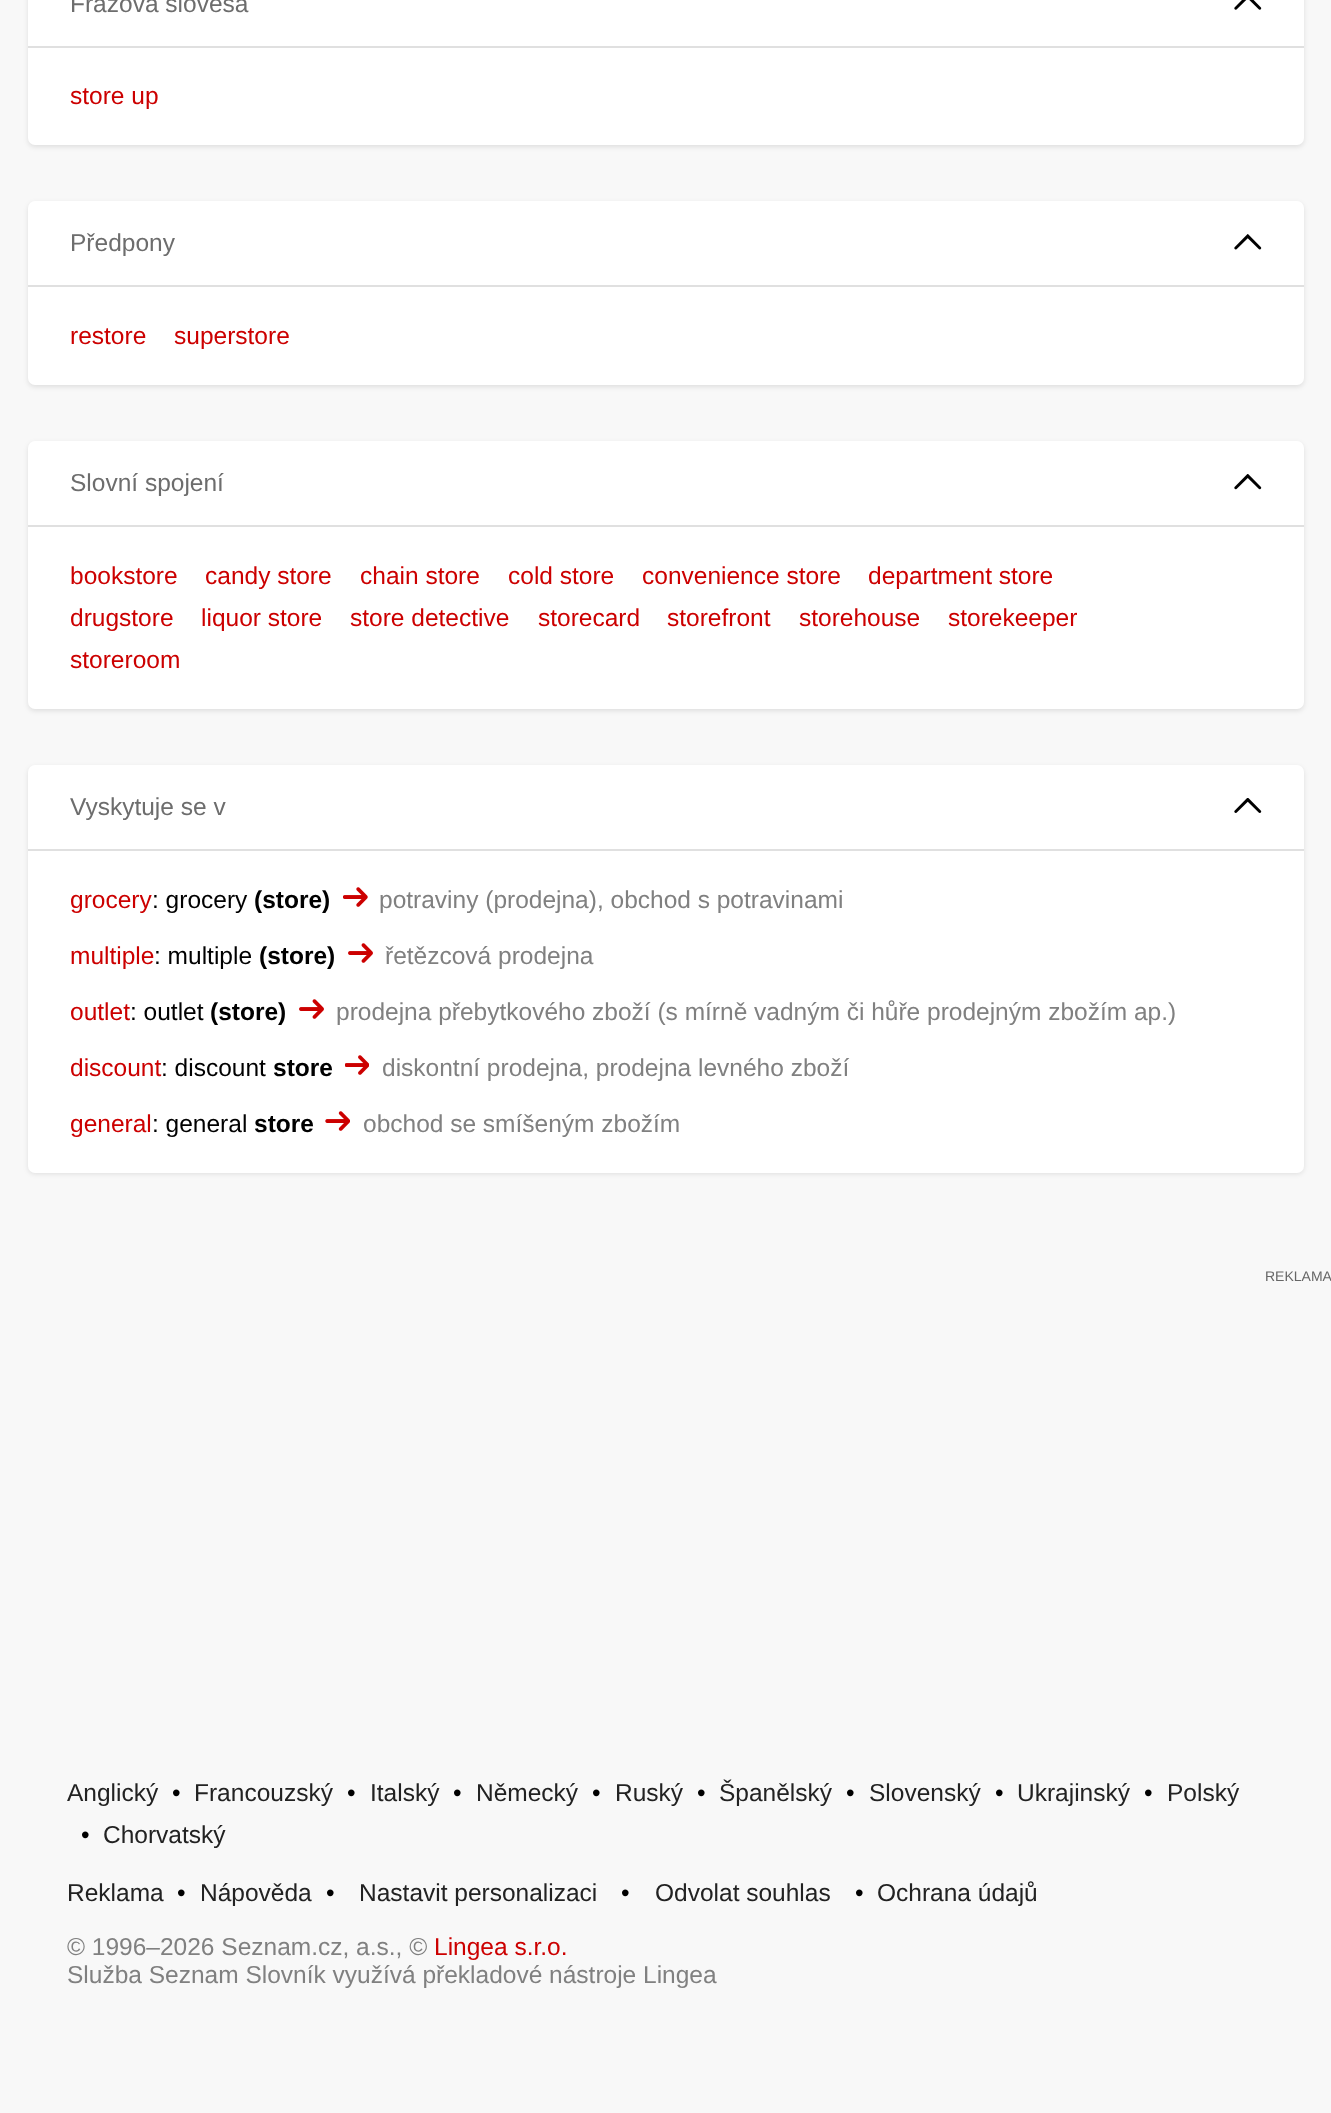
async function draw(canvas) {
  canvas.width = 1331
  canvas.height = 2113
  const ctx = canvas.getContext('2d')
  ctx.miterLimit = 4
  ctx.fontKerning = 'normal'
  async function loadImage(src) {
    const img = new Image()
    img.src = src
    await img.decode()
    return img
  }

  ctx.fillStyle = '#f8f8f8'
  ctx.fillRect(0, 0, 1331, 2113)
  ctx.fillStyle = '#0000001a'
  ctx.filter = 'blur(2.5px)'
  ctx.beginPath()
  ctx.roundRect(28, -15, 1276, 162, 7)
  ctx.fill()
  ctx.filter = 'none'
  ctx.fillStyle = '#fff'
  ctx.beginPath()
  ctx.roundRect(28, -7, 1276, 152, 7)
  ctx.fill()
  ctx.fillStyle = '#e0e0e0'
  ctx.fillRect(28, 46, 1276, 2)
  ctx.font = '24.5px Liberation Sans'
  ctx.fillStyle = '#6d6d6d'
  ctx.fillText('Frázová slovesa', 70, 12)
  ctx.drawImage(await loadImage('image0.png'), 1234, 0, 28, 10)
  ctx.fillStyle = '#c00'
  ctx.fillText('store up', 70, 104)
  ctx.fillStyle = '#0000001a'
  ctx.filter = 'blur(2.5px)'
  ctx.beginPath()
  ctx.roundRect(28, 203, 1276, 184, 7)
  ctx.fill()
  ctx.filter = 'none'
  ctx.fillStyle = '#fff'
  ctx.beginPath()
  ctx.roundRect(28, 201, 1276, 184, 7)
  ctx.fill()
  ctx.fillStyle = '#e0e0e0'
  ctx.fillRect(28, 285, 1276, 2)
  ctx.fillStyle = '#6d6d6d'
  ctx.fillText('Předpony', 70, 251)
  ctx.drawImage(await loadImage('image1.png'), 1234, 234, 28, 16)
  ctx.fillStyle = '#c00'
  ctx.fillText('restore', 70, 344)
  ctx.fillText('superstore', 174, 344)
  ctx.fillStyle = '#0000001a'
  ctx.filter = 'blur(2.5px)'
  ctx.beginPath()
  ctx.roundRect(28, 443, 1276, 268, 7)
  ctx.fill()
  ctx.filter = 'none'
  ctx.fillStyle = '#fff'
  ctx.beginPath()
  ctx.roundRect(28, 441, 1276, 268, 7)
  ctx.fill()
  ctx.fillStyle = '#e0e0e0'
  ctx.fillRect(28, 525, 1276, 2)
  ctx.fillStyle = '#6d6d6d'
  ctx.fillText('Slovní spojení', 70, 491)
  ctx.drawImage(await loadImage('image2.png'), 1234, 474, 28, 16)
  ctx.fillStyle = '#c00'
  ctx.fillText('bookstore', 70, 584)
  ctx.fillText('candy store', 205, 584)
  ctx.fillText('chain store', 360, 584)
  ctx.fillText('cold store', 508, 584)
  ctx.fillText('convenience store', 642, 584)
  ctx.fillText('department store', 868, 584)
  ctx.fillText('drugstore', 70, 626)
  ctx.fillText('liquor store', 201, 626)
  ctx.fillText('store detective', 350, 626)
  ctx.fillText('storecard', 538, 626)
  ctx.fillText('storefront', 667, 626)
  ctx.fillText('storehouse', 799, 626)
  ctx.fillText('storekeeper', 948, 626)
  ctx.fillText('storeroom', 70, 668)
  ctx.fillStyle = '#0000001a'
  ctx.filter = 'blur(2.5px)'
  ctx.beginPath()
  ctx.roundRect(28, 767, 1276, 407, 7)
  ctx.fill()
  ctx.filter = 'none'
  ctx.fillStyle = '#fff'
  ctx.beginPath()
  ctx.roundRect(28, 765, 1276, 408, 7)
  ctx.fill()
  ctx.fillStyle = '#e0e0e0'
  ctx.fillRect(28, 849, 1276, 2)
  ctx.fillStyle = '#6d6d6d'
  ctx.fillText('Vyskytuje se v', 70, 815)
  ctx.drawImage(await loadImage('image3.png'), 1234, 798, 28, 15)
  ctx.fillStyle = '#c00'
  ctx.fillText('grocery', 70, 908)
  ctx.fillStyle = '#000'
  ctx.fillText(': grocery', 152, 908)
  ctx.font = 'bold 24.5px Liberation Sans'
  ctx.fillText('(store)', 254, 908)
  ctx.drawImage(await loadImage('image4.png'), 343, 887, 25, 20)
  ctx.font = '24.5px Liberation Sans'
  ctx.fillStyle = '#808080'
  ctx.fillText('potraviny (prodejna), obchod s potravinami', 379, 908)
  ctx.fillStyle = '#c00'
  ctx.fillText('multiple', 70, 964)
  ctx.fillStyle = '#000'
  ctx.fillText(': multiple', 154, 964)
  ctx.font = 'bold 24.5px Liberation Sans'
  ctx.fillText('(store)', 259, 964)
  ctx.drawImage(await loadImage('image5.png'), 348, 943, 25, 20)
  ctx.font = '24.5px Liberation Sans'
  ctx.fillStyle = '#808080'
  ctx.fillText('řetězcová prodejna', 385, 964)
  ctx.fillStyle = '#c00'
  ctx.fillText('outlet', 70, 1020)
  ctx.fillStyle = '#000'
  ctx.fillText(': outlet', 130, 1020)
  ctx.font = 'bold 24.5px Liberation Sans'
  ctx.fillText('(store)', 210, 1020)
  ctx.drawImage(await loadImage('image5.png'), 299, 999, 25, 20)
  ctx.font = '24.5px Liberation Sans'
  ctx.fillStyle = '#808080'
  ctx.fillText('prodejna přebytkového zboží (s mírně vadným či hůře prodejným zbožím ap.)', 336, 1020)
  ctx.fillStyle = '#c00'
  ctx.fillText('discount', 70, 1076)
  ctx.fillStyle = '#000'
  ctx.fillText(': discount', 161, 1076)
  ctx.font = 'bold 24.5px Liberation Sans'
  ctx.fillText('store', 273, 1076)
  ctx.drawImage(await loadImage('image6.png'), 345, 1055, 24, 20)
  ctx.font = '24.5px Liberation Sans'
  ctx.fillStyle = '#808080'
  ctx.fillText('diskontní prodejna, prodejna levného zboží', 382, 1076)
  ctx.fillStyle = '#c00'
  ctx.fillText('general', 70, 1132)
  ctx.fillStyle = '#000'
  ctx.fillText(': general', 152, 1132)
  ctx.font = 'bold 24.5px Liberation Sans'
  ctx.fillText('store', 254, 1132)
  ctx.drawImage(await loadImage('image7.png'), 325, 1111, 25, 20)
  ctx.font = '24.5px Liberation Sans'
  ctx.fillStyle = '#808080'
  ctx.fillText('obchod se smíšeným zbožím', 363, 1132)
  ctx.font = '14px Liberation Sans'
  ctx.fillStyle = '#666'
  ctx.fillText('REKLAMA', 1265, 1281)
  ctx.font = '24.5px Liberation Sans'
  ctx.fillStyle = '#222'
  ctx.fillText('Anglický', 67, 1801)
  ctx.fillStyle = '#000'
  ctx.fillText('•', 172, 1801)
  ctx.fillStyle = '#222'
  ctx.fillText('Francouzský', 194, 1801)
  ctx.fillStyle = '#000'
  ctx.fillText('•', 347, 1801)
  ctx.fillStyle = '#222'
  ctx.fillText('Italský', 370, 1801)
  ctx.fillStyle = '#000'
  ctx.fillText('•', 453, 1801)
  ctx.fillStyle = '#222'
  ctx.fillText('Německý', 476, 1801)
  ctx.fillStyle = '#000'
  ctx.fillText('•', 592, 1801)
  ctx.fillStyle = '#222'
  ctx.fillText('Ruský', 615, 1801)
  ctx.fillStyle = '#000'
  ctx.fillText('•', 697, 1801)
  ctx.fillStyle = '#222'
  ctx.fillText('Španělský', 719, 1801)
  ctx.fillStyle = '#000'
  ctx.fillText('•', 846, 1801)
  ctx.fillStyle = '#222'
  ctx.fillText('Slovenský', 869, 1801)
  ctx.fillStyle = '#000'
  ctx.fillText('•', 995, 1801)
  ctx.fillStyle = '#222'
  ctx.fillText('Ukrajinský', 1017, 1801)
  ctx.fillStyle = '#000'
  ctx.fillText('•', 1144, 1801)
  ctx.fillStyle = '#222'
  ctx.fillText('Polský', 1167, 1801)
  ctx.fillStyle = '#000'
  ctx.fillText('•', 81, 1843)
  ctx.fillStyle = '#222'
  ctx.fillText('Chorvatský', 103, 1843)
  ctx.fillText('Reklama', 67, 1901)
  ctx.fillStyle = '#000'
  ctx.fillText('•', 177, 1901)
  ctx.fillStyle = '#222'
  ctx.fillText('Nápověda', 200, 1901)
  ctx.fillStyle = '#000'
  ctx.fillText('•', 326, 1901)
  ctx.fillStyle = '#222'
  ctx.fillText('Nastavit personalizaci', 359, 1901)
  ctx.fillStyle = '#000'
  ctx.fillText('•', 621, 1901)
  ctx.fillStyle = '#222'
  ctx.fillText('Odvolat souhlas', 655, 1901)
  ctx.fillStyle = '#000'
  ctx.fillText('•', 855, 1901)
  ctx.fillStyle = '#222'
  ctx.fillText('Ochrana údajů', 877, 1901)
  ctx.fillStyle = '#808080'
  ctx.fillText('© 1996–2026 Seznam.cz, a.s., ©', 67, 1955)
  ctx.fillStyle = '#c00'
  ctx.fillText('Lingea s.r.o.', 434, 1955)
  ctx.fillStyle = '#808080'
  ctx.fillText('Služba Seznam Slovník využívá překladové nástroje Lingea', 67, 1983)
}

draw(document.querySelector('canvas'))
